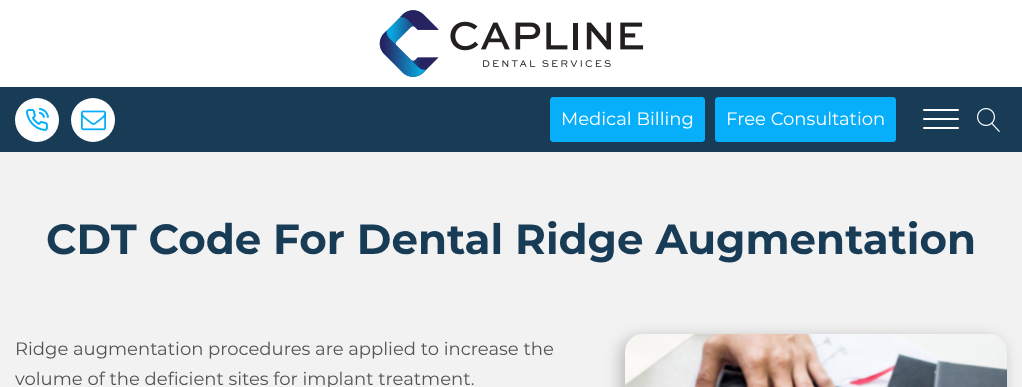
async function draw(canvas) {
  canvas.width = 1022
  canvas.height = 387
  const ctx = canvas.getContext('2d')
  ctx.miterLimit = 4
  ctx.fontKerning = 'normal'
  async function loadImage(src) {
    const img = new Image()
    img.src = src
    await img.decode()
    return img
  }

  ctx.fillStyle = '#fff'
  ctx.fillRect(0, 0, 1022, 387)
  ctx.drawImage(await loadImage('image0.png'), 379, 10, 265, 67)
  ctx.fillStyle = '#183b56'
  ctx.fillRect(0, 87, 1022, 65)
  ctx.fillStyle = '#fff'
  ctx.beginPath()
  ctx.arc(37, 120, 22, 0, 2 * Math.PI)
  ctx.fill()
  ctx.drawImage(await loadImage('image1.png'), 26, 108, 23, 23)
  ctx.beginPath()
  ctx.arc(93, 120, 22, 0, 2 * Math.PI)
  ctx.fill()
  ctx.drawImage(await loadImage('image2.png'), 81, 110, 25, 21)
  ctx.fillStyle = '#07affa'
  ctx.beginPath()
  ctx.roundRect(550.5, 97.5, 154, 44, 2.5)
  ctx.fill()
  ctx.strokeStyle = '#07affa'
  ctx.stroke()
  ctx.font = '18px Montserrat'
  ctx.fillStyle = '#fff'
  ctx.fillText('Medical Billing', 561, 125)
  ctx.fillStyle = '#07affa'
  ctx.beginPath()
  ctx.roundRect(715.5, 97.5, 180, 44, 2.5)
  ctx.fill()
  ctx.stroke()
  ctx.fillStyle = '#fff'
  ctx.fillText('Free Consultation', 726, 125)
  ctx.beginPath()
  ctx.roundRect(923, 109, 36, 2, 1)
  ctx.fill()
  ctx.beginPath()
  ctx.roundRect(923, 118, 36, 2, 1)
  ctx.fill()
  ctx.beginPath()
  ctx.roundRect(923, 127, 36, 2, 1)
  ctx.fill()
  ctx.drawImage(await loadImage('image3.png'), 977, 108, 23, 24)
  ctx.fillStyle = '#f2f2f2'
  ctx.fillRect(0, 152, 1022, 235)
  ctx.font = 'bold 42px Montserrat'
  ctx.fillStyle = '#183b56'
  ctx.fillText('CDT Code For Dental Ridge Augmentation', 46, 254)
  ctx.font = '18px Montserrat'
  ctx.fillStyle = '#545454'
  ctx.fillText('Ridge augmentation procedures are applied to increase the', 15, 355)
  ctx.fillText('volume of the deficient sites for implant treatment.', 15, 385)
  ctx.fillStyle = '#00000040'
  ctx.filter = 'blur(8px)'
  ctx.beginPath()
  ctx.roundRect(621, 338, 382, 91, 18)
  ctx.fill()
  ctx.filter = 'none'
  ctx.drawImage(await loadImage('image4.png'), 625, 334, 382, 53)
}

draw(document.querySelector('canvas'))
